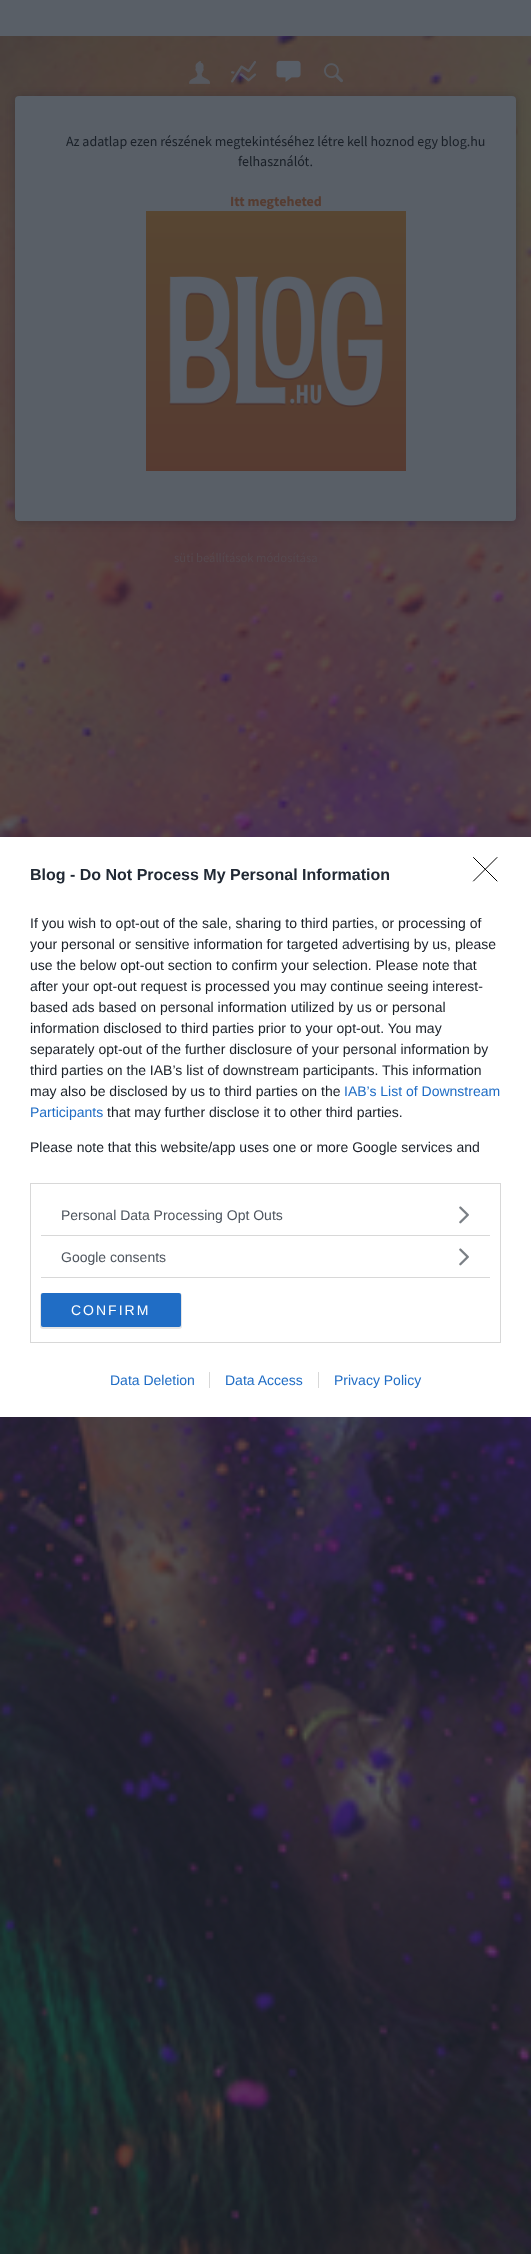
async function draw(canvas) {
  canvas.width = 531
  canvas.height = 2254
  const ctx = canvas.getContext('2d')
  ctx.miterLimit = 4
  ctx.fontKerning = 'normal'
  async function loadImage(src) {
    const img = new Image()
    img.src = src
    await img.decode()
    return img
  }

  ctx.fillStyle = '#fff'
  ctx.fillRect(0, 0, 531, 2254)
  ctx.drawImage(await loadImage('image0.png'), 0, 36, 531, 2218)
  ctx.fillStyle = '#595f67'
  ctx.fillRect(0, 0, 531, 36)
  ctx.drawImage(await loadImage('image1.png'), 189, 61, 21, 23)
  ctx.drawImage(await loadImage('image2.png'), 231, 61, 26, 22)
  ctx.drawImage(await loadImage('image3.png'), 276, 60, 25, 22)
  ctx.drawImage(await loadImage('image4.png'), 324, 63, 19, 20)
  ctx.fillStyle = '#191f274d'
  ctx.filter = 'blur(5px)'
  ctx.beginPath()
  ctx.roundRect(15, 97, 501, 425, 4)
  ctx.fill()
  ctx.filter = 'none'
  ctx.fillStyle = '#595f67'
  ctx.beginPath()
  ctx.roundRect(15, 96, 501, 425, 4)
  ctx.fill()
  ctx.font = '14px Source Sans Pro'
  ctx.fillStyle = '#191f27'
  ctx.fillText('Az adatlap ezen részének megtekintéséhez létre kell hoznod egy blog.hu', 66, 146)
  ctx.fillText('felhasználót.', 238, 166)
  ctx.font = 'bold 14px Source Sans Pro'
  ctx.fillStyle = '#563c31'
  ctx.fillText('Itt megteheted', 230, 206)
  ctx.drawImage(await loadImage('image5.png'), 146, 211, 260, 260)
  ctx.font = '12.6px Source Sans Pro'
  ctx.fillStyle = '#56494f'
  ctx.fillText('süti beállítások módosítása', 174, 562)
  ctx.fillStyle = '#fff'
  ctx.fillRect(0, 837, 531, 580)
  ctx.beginPath()
  ctx.moveTo(473.5, 857.5)
  ctx.lineTo(497, 881)
  ctx.moveTo(497, 857.5)
  ctx.lineTo(473.5, 881)
  ctx.strokeStyle = '#000'
  ctx.lineCap = 'round'
  ctx.lineJoin = 'round'
  ctx.stroke()
  ctx.font = 'bold 16px Liberation Sans'
  ctx.fillStyle = '#212934'
  ctx.fillText('Blog - Do Not Process My Personal Information', 30, 880)
  ctx.font = '14px Liberation Sans'
  ctx.fillStyle = '#191f27'
  ctx.fillText('If you wish to opt-out of the sale, sharing to third parties, or processing of', 30, 928)
  ctx.fillText('your personal or sensitive information for targeted advertising by us, please', 30, 949)
  ctx.fillText('use the below opt-out section to confirm your selection. Please note that', 30, 970)
  ctx.fillText('after your opt-out request is processed you may continue seeing interest-', 30, 991)
  ctx.fillText('based ads based on personal information utilized by us or personal', 30, 1012)
  ctx.fillText('information disclosed to third parties prior to your opt-out. You may', 30, 1033)
  ctx.fillText('separately opt-out of the further disclosure of your personal information by', 30, 1054)
  ctx.fillText('third parties on the IAB’s list of downstream participants. This information', 30, 1075)
  ctx.fillText('may also be disclosed by us to third parties on the', 30, 1096)
  ctx.fillStyle = '#206dc5'
  ctx.fillText('IAB’s List of Downstream', 344, 1096)
  ctx.fillText('Participants', 30, 1117)
  ctx.fillStyle = '#191f27'
  ctx.fillText('that may further disclose it to other third parties.', 107, 1117)
  ctx.fillText('Please note that this website/app uses one or more Google services and', 30, 1152)
  ctx.strokeStyle = '#d8d8d8'
  ctx.lineJoin = 'miter'
  ctx.strokeRect(30.5, 1183.5, 470, 159)
  ctx.fillStyle = '#d8d8d8'
  ctx.fillRect(41, 1235, 449, 1)
  ctx.fillStyle = '#4d545d'
  ctx.fillText('Personal Data Processing Opt Outs', 61, 1220)
  ctx.drawImage(await loadImage('image6.png'), 459, 1206, 10, 18)
  ctx.fillStyle = '#d8d8d8'
  ctx.fillRect(41, 1277, 449, 1)
  ctx.fillStyle = '#4d545d'
  ctx.fillText('Google consents', 61, 1262)
  ctx.drawImage(await loadImage('image6.png'), 459, 1248, 10, 18)
  ctx.fillStyle = '#0000001a'
  ctx.filter = 'blur(0.5px)'
  ctx.beginPath()
  ctx.roundRect(40, 1293, 142, 36, 3)
  ctx.fill()
  ctx.filter = 'none'
  ctx.fillStyle = '#206dc5'
  ctx.beginPath()
  ctx.roundRect(41, 1293, 140, 34, 2)
  ctx.fill()
  ctx.letterSpacing = '2px'
  ctx.fillStyle = '#fff'
  ctx.fillText('CONFIRM', 71, 1315)
  ctx.letterSpacing = '0px'
  ctx.fillStyle = '#206dc5'
  ctx.fillText('Data Deletion', 110, 1385)
  ctx.fillText('Data Access', 225, 1385)
  ctx.fillStyle = '#d8d8d8'
  ctx.fillRect(209, 1372, 1, 16)
  ctx.fillStyle = '#206dc5'
  ctx.fillText('Privacy Policy', 334, 1385)
  ctx.fillStyle = '#d8d8d8'
  ctx.fillRect(318, 1372, 1, 16)
}

draw(document.querySelector('canvas'))
